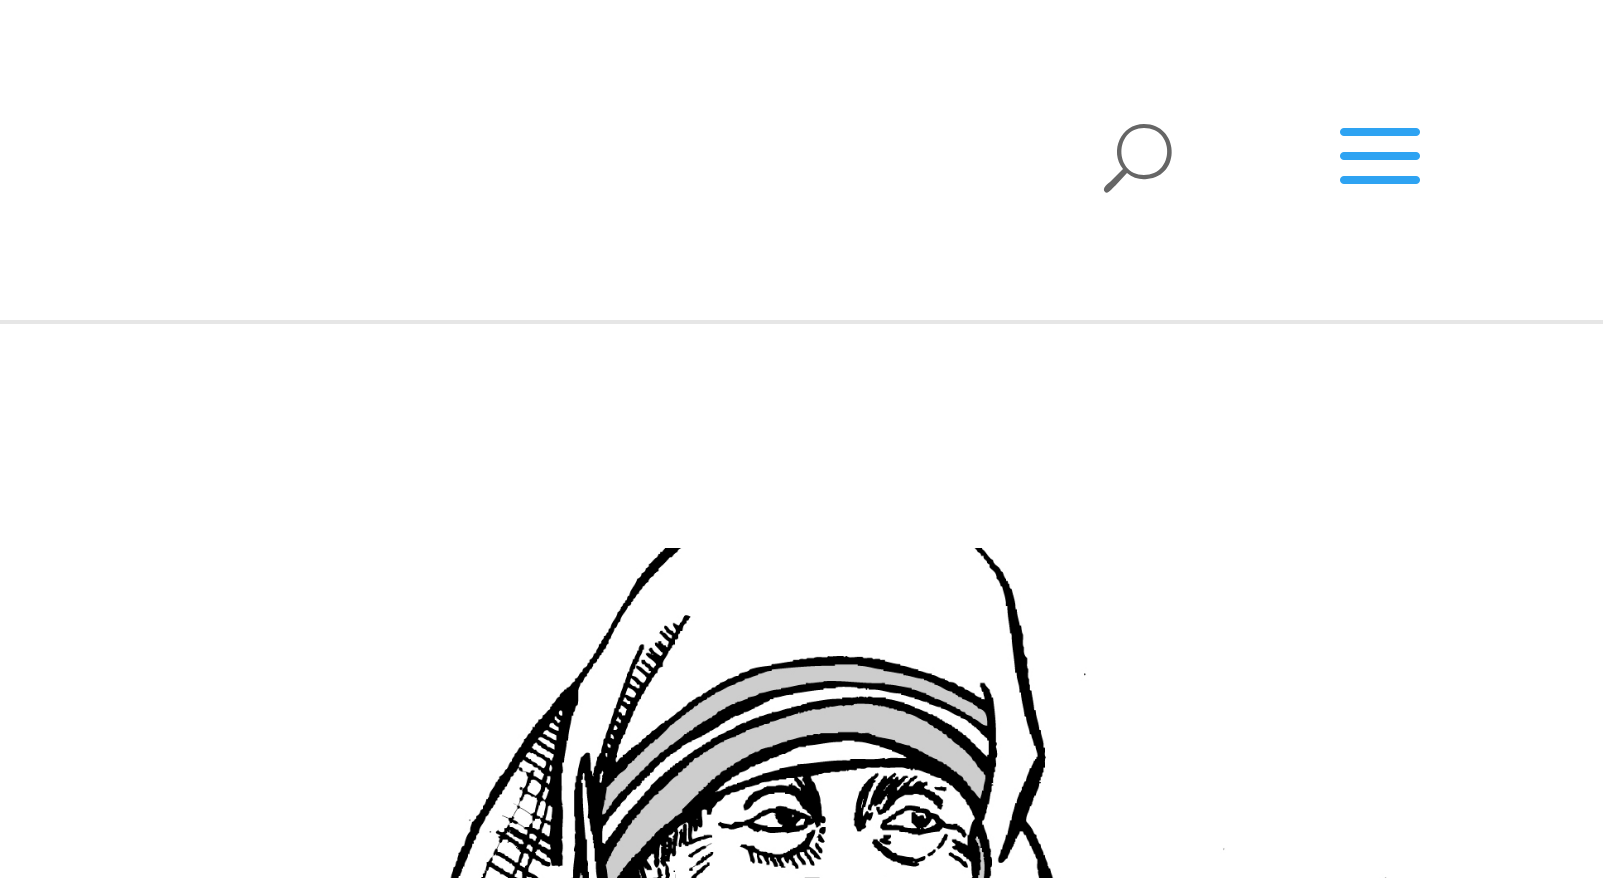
async function draw(canvas) {
  canvas.width = 1603
  canvas.height = 878
  const ctx = canvas.getContext('2d')
  ctx.miterLimit = 4
  ctx.fontKerning = 'normal'
  async function loadImage(src) {
    const img = new Image()
    img.src = src
    await img.decode()
    return img
  }

  ctx.fillStyle = '#fff'
  ctx.fillRect(0, 0, 1603, 878)
  ctx.fillStyle = '#e6e6e6'
  ctx.fillRect(0, 320, 1603, 4)
  ctx.fillStyle = '#666'
  ctx.beginPath()
  ctx.moveTo(1144, 124)
  ctx.bezierCurveTo(1121, 124, 1109, 151, 1123, 169)
  ctx.lineTo(1111, 181)
  ctx.bezierCurveTo(1109, 183, 1101, 188, 1105, 192)
  ctx.bezierCurveTo(1108, 195, 1113, 187, 1115, 186)
  ctx.lineTo(1127, 173)
  ctx.bezierCurveTo(1133, 178, 1140, 180, 1147, 179)
  ctx.bezierCurveTo(1182, 176, 1179, 124, 1144, 124)
  ctx.closePath()
  ctx.moveTo(1144, 175)
  ctx.bezierCurveTo(1114, 175, 1114, 128, 1144, 128)
  ctx.bezierCurveTo(1175, 128, 1175, 175, 1144, 175)
  ctx.closePath()
  ctx.fill()
  ctx.drawImage(await loadImage('image0.png'), 1340, 128, 80, 56)
  ctx.drawImage(await loadImage('image1.png'), 450, 548, 937, 330)
}

draw(document.querySelector('canvas'))
